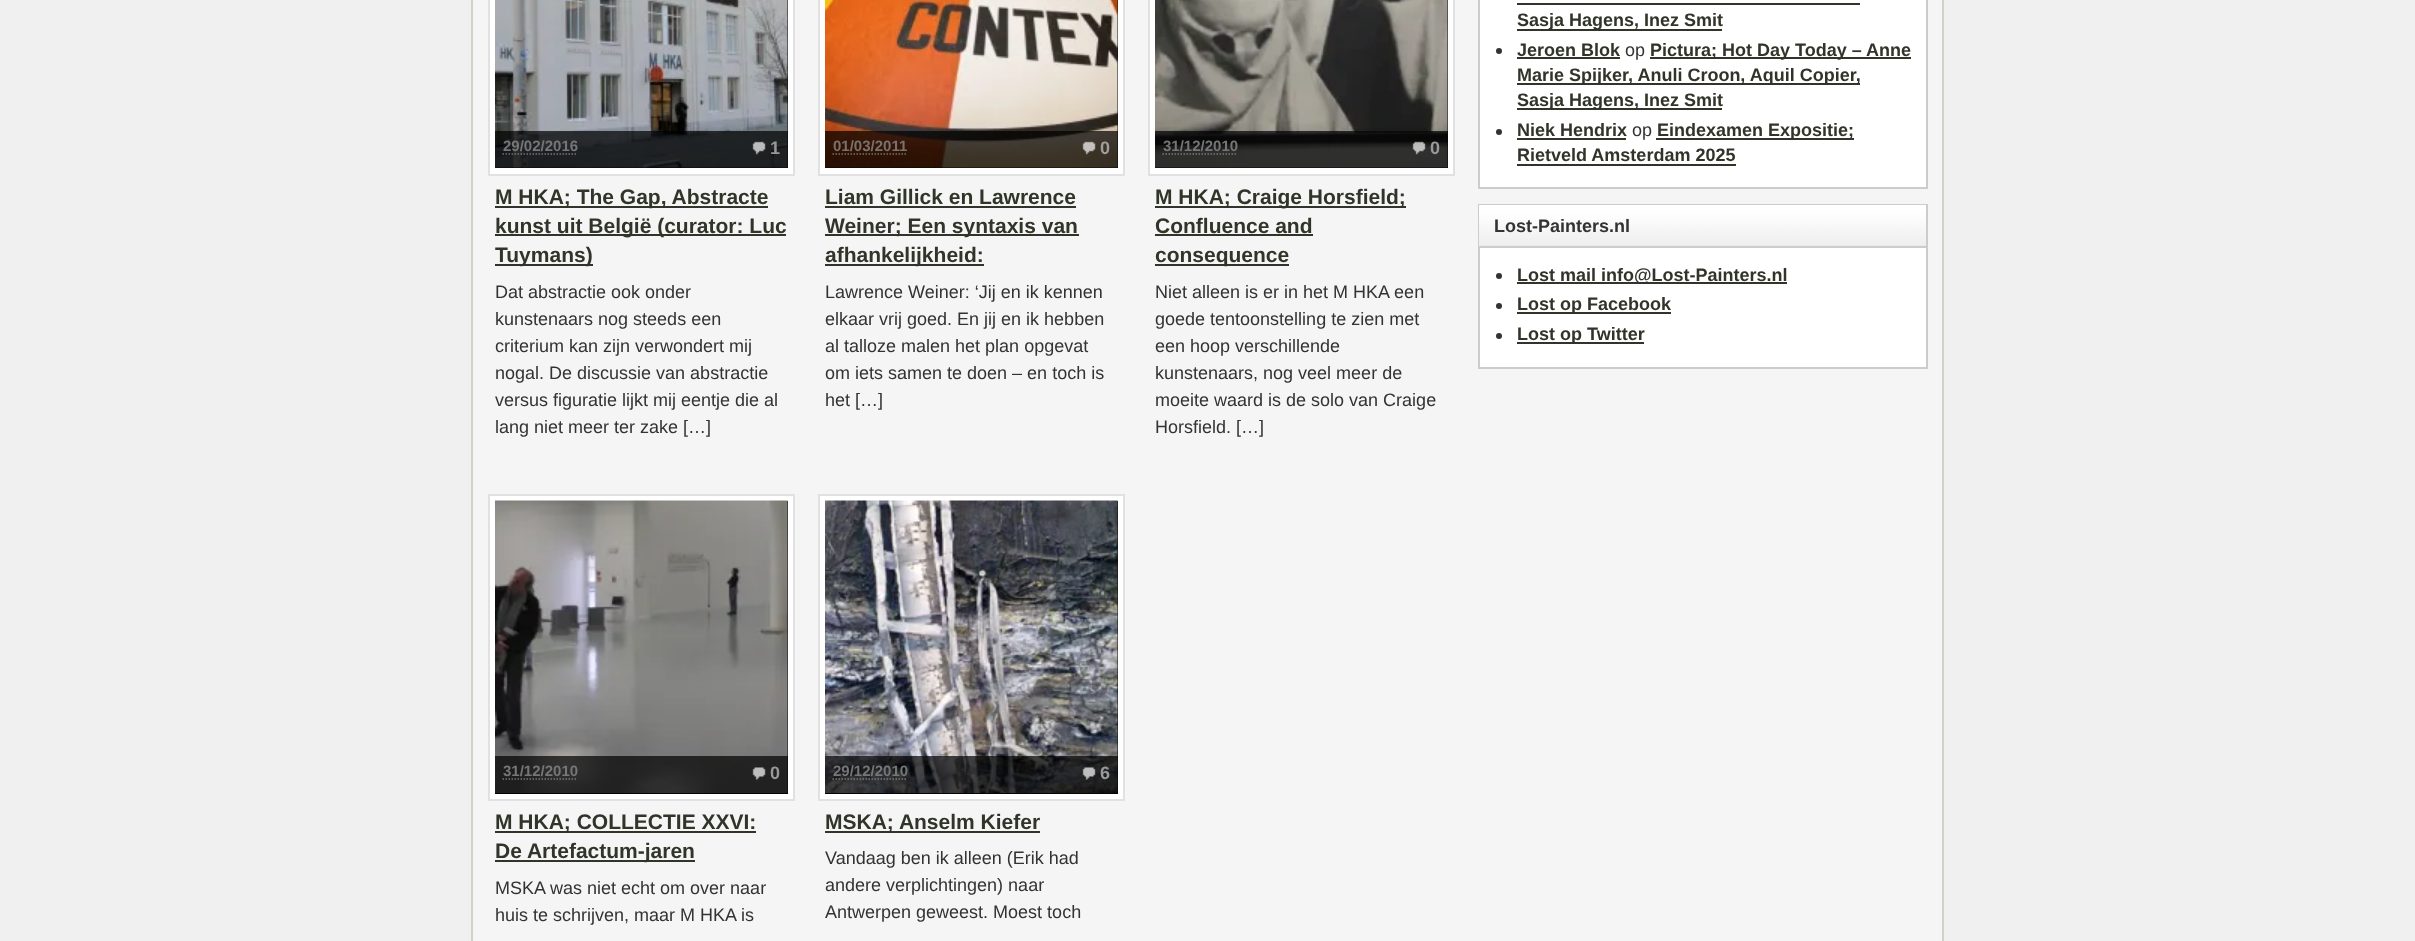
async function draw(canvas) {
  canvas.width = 2415
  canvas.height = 941
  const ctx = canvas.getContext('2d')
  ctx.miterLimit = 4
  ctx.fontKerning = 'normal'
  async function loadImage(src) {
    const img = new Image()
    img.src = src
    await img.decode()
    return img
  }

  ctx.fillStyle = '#f0f0f0'
  ctx.fillRect(0, 0, 2415, 941)
  ctx.fillStyle = '#f5f5f5'
  ctx.beginPath()
  ctx.rect(472, -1, 1471, 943)
  ctx.fill()
  ctx.strokeStyle = '#d3d1c7'
  ctx.lineWidth = 2
  ctx.stroke()
  ctx.fillStyle = '#fff'
  ctx.beginPath()
  ctx.rect(489, -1, 305, 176)
  ctx.fill()
  ctx.strokeStyle = '#e1e1e1'
  ctx.stroke()
  ctx.fillStyle = '#111'
  ctx.fillRect(495, 0, 293, 168)
  ctx.drawImage(await loadImage('image0.png'), 495, 0, 293, 168)
  ctx.fillStyle = '#000000b3'
  ctx.fillRect(495, 131, 293, 37)
  ctx.font = 'bold 15px Liberation Sans'
  ctx.fillStyle = '#757677'
  ctx.fillText('29/02/2016', 503, 151)
  ctx.beginPath()
  ctx.moveTo(502.5, 154)
  ctx.lineTo(577.5, 154)
  ctx.strokeStyle = '#999999b3'
  ctx.lineWidth = 1.5
  ctx.setLineDash([1.5, 1.5])
  ctx.stroke()
  ctx.drawImage(await loadImage('image1.png'), 752, 141, 14, 14)
  ctx.font = 'bold 18px Liberation Sans'
  ctx.fillStyle = '#989899'
  ctx.fillText('1', 770, 154)
  ctx.fillStyle = '#313428'
  ctx.fillRect(495, 206, 273, 2)
  ctx.font = 'bold 21px Liberation Sans'
  ctx.fillText('M HKA; The Gap, Abstracte', 495, 204)
  ctx.fillRect(495, 234, 291, 2)
  ctx.fillText('kunst uit België (curator: Luc', 495, 233)
  ctx.fillRect(495, 264, 98, 2)
  ctx.fillText('Tuymans)', 495, 262)
  ctx.font = '18px Liberation Sans'
  ctx.fillStyle = '#333'
  ctx.fillText('Dat abstractie ook onder', 495, 298)
  ctx.fillText('kunstenaars nog steeds een', 495, 325)
  ctx.fillText('criterium kan zijn verwondert mij', 495, 352)
  ctx.fillText('nogal. De discussie van abstractie', 495, 379)
  ctx.fillText('versus figuratie lijkt mij eentje die al', 495, 406)
  ctx.fillText('lang niet meer ter zake […]', 495, 433)
  ctx.fillStyle = '#fff'
  ctx.beginPath()
  ctx.rect(819, -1, 305, 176)
  ctx.fill()
  ctx.strokeStyle = '#e1e1e1'
  ctx.lineWidth = 2
  ctx.setLineDash([])
  ctx.stroke()
  ctx.fillStyle = '#111'
  ctx.fillRect(825, 0, 293, 168)
  ctx.drawImage(await loadImage('image2.png'), 825, 0, 293, 168)
  ctx.fillStyle = '#000000b3'
  ctx.fillRect(825, 131, 293, 37)
  ctx.font = 'bold 15px Liberation Sans'
  ctx.fillStyle = '#7a716d'
  ctx.fillText('01/03/2011', 833, 151)
  ctx.beginPath()
  ctx.moveTo(832.5, 154)
  ctx.lineTo(907, 154)
  ctx.strokeStyle = '#999999b3'
  ctx.lineWidth = 1.5
  ctx.setLineDash([1.5, 1.5])
  ctx.stroke()
  ctx.drawImage(await loadImage('image3.png'), 1082, 141, 14, 14)
  ctx.font = 'bold 18px Liberation Sans'
  ctx.fillStyle = '#a09e9b'
  ctx.fillText('0', 1100, 154)
  ctx.font = 'bold 21px Liberation Sans'
  ctx.fillStyle = '#313428'
  ctx.fillText('Liam Gillick en Lawrence', 825, 204)
  ctx.fillRect(825, 206, 251, 2)
  ctx.fillRect(825, 234, 254, 2)
  ctx.fillText('Weiner; Een syntaxis van', 825, 233)
  ctx.fillRect(825, 264, 159, 2)
  ctx.fillText('afhankelijkheid:', 825, 262)
  ctx.font = '18px Liberation Sans'
  ctx.fillStyle = '#333'
  ctx.fillText('Lawrence Weiner: ‘Jij en ik kennen', 825, 298)
  ctx.fillText('elkaar vrij goed. En jij en ik hebben', 825, 325)
  ctx.fillText('al talloze malen het plan opgevat', 825, 352)
  ctx.fillText('om iets samen te doen – en toch is', 825, 379)
  ctx.fillText('het […]', 825, 406)
  ctx.fillStyle = '#fff'
  ctx.beginPath()
  ctx.rect(1149, -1, 305, 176)
  ctx.fill()
  ctx.strokeStyle = '#e1e1e1'
  ctx.lineWidth = 2
  ctx.setLineDash([])
  ctx.stroke()
  ctx.fillStyle = '#111'
  ctx.fillRect(1155, 0, 293, 168)
  ctx.drawImage(await loadImage('image4.png'), 1155, 0, 293, 168)
  ctx.fillStyle = '#000000b3'
  ctx.fillRect(1155, 131, 293, 37)
  ctx.font = 'bold 15px Liberation Sans'
  ctx.fillStyle = '#757677'
  ctx.fillText('31/12/2010', 1163, 151)
  ctx.beginPath()
  ctx.moveTo(1162.5, 154)
  ctx.lineTo(1237.5, 154)
  ctx.strokeStyle = '#999999b3'
  ctx.lineWidth = 1.5
  ctx.setLineDash([1.5, 1.5])
  ctx.stroke()
  ctx.drawImage(await loadImage('image5.png'), 1412, 141, 14, 14)
  ctx.font = 'bold 18px Liberation Sans'
  ctx.fillStyle = '#989899'
  ctx.fillText('0', 1430, 154)
  ctx.fillStyle = '#313428'
  ctx.fillRect(1155, 206, 251, 2)
  ctx.font = 'bold 21px Liberation Sans'
  ctx.fillText('M HKA; Craige Horsfield;', 1155, 204)
  ctx.fillText('Confluence and', 1155, 233)
  ctx.fillRect(1155, 234, 158, 2)
  ctx.fillRect(1155, 264, 134, 2)
  ctx.fillText('consequence', 1155, 262)
  ctx.font = '18px Liberation Sans'
  ctx.fillStyle = '#333'
  ctx.fillText('Niet alleen is er in het M HKA een', 1155, 298)
  ctx.fillText('goede tentoonstelling te zien met', 1155, 325)
  ctx.fillText('een hoop verschillende', 1155, 352)
  ctx.fillText('kunstenaars, nog veel meer de', 1155, 379)
  ctx.fillText('moeite waard is de solo van Craige', 1155, 406)
  ctx.fillText('Horsfield. […]', 1155, 433)
  ctx.fillStyle = '#fff'
  ctx.beginPath()
  ctx.rect(489, 495, 305, 305)
  ctx.fill()
  ctx.strokeStyle = '#e1e1e1'
  ctx.lineWidth = 2
  ctx.setLineDash([])
  ctx.stroke()
  ctx.fillStyle = '#111'
  ctx.fillRect(495, 501, 293, 293)
  ctx.drawImage(await loadImage('image6.png'), 495, 500, 293, 293)
  ctx.fillStyle = '#000000b3'
  ctx.fillRect(495, 756, 293, 38)
  ctx.font = 'bold 15px Liberation Sans'
  ctx.fillStyle = '#757677'
  ctx.fillText('31/12/2010', 503, 776)
  ctx.beginPath()
  ctx.moveTo(502.5, 779)
  ctx.lineTo(577.5, 779)
  ctx.strokeStyle = '#999999b3'
  ctx.lineWidth = 1.5
  ctx.setLineDash([1.5, 1.5])
  ctx.stroke()
  ctx.drawImage(await loadImage('image7.png'), 752, 767, 14, 13)
  ctx.font = 'bold 18px Liberation Sans'
  ctx.fillStyle = '#989899'
  ctx.fillText('0', 770, 779)
  ctx.fillStyle = '#313428'
  ctx.fillRect(495, 831, 261, 2)
  ctx.font = 'bold 21px Liberation Sans'
  ctx.fillText('M HKA; COLLECTIE XXVI:', 495, 829)
  ctx.fillRect(495, 860, 200, 2)
  ctx.fillText('De Artefactum-jaren', 495, 858)
  ctx.font = '18px Liberation Sans'
  ctx.fillStyle = '#333'
  ctx.fillText('MSKA was niet echt om over naar', 495, 894)
  ctx.fillText('huis te schrijven, maar M HKA is', 495, 921)
  ctx.fillStyle = '#fff'
  ctx.beginPath()
  ctx.rect(819, 495, 305, 305)
  ctx.fill()
  ctx.strokeStyle = '#e1e1e1'
  ctx.lineWidth = 2
  ctx.setLineDash([])
  ctx.stroke()
  ctx.fillStyle = '#111'
  ctx.fillRect(825, 501, 293, 293)
  ctx.drawImage(await loadImage('image8.png'), 825, 500, 293, 293)
  ctx.fillStyle = '#000000b3'
  ctx.fillRect(825, 756, 293, 38)
  ctx.font = 'bold 15px Liberation Sans'
  ctx.fillStyle = '#757677'
  ctx.fillText('29/12/2010', 833, 776)
  ctx.beginPath()
  ctx.moveTo(832.5, 779)
  ctx.lineTo(907.5, 779)
  ctx.strokeStyle = '#999999b3'
  ctx.lineWidth = 1.5
  ctx.setLineDash([1.5, 1.5])
  ctx.stroke()
  ctx.drawImage(await loadImage('image9.png'), 1082, 767, 14, 13)
  ctx.font = 'bold 18px Liberation Sans'
  ctx.fillStyle = '#989899'
  ctx.fillText('6', 1100, 779)
  ctx.fillStyle = '#313428'
  ctx.fillRect(825, 831, 215, 2)
  ctx.font = 'bold 21px Liberation Sans'
  ctx.fillText('MSKA; Anselm Kiefer', 825, 829)
  ctx.font = '18px Liberation Sans'
  ctx.fillStyle = '#333'
  ctx.fillText('Vandaag ben ik alleen (Erik had', 825, 864)
  ctx.fillText('andere verplichtingen) naar', 825, 891)
  ctx.fillText('Antwerpen geweest. Moest toch', 825, 918)
  ctx.fillStyle = '#fff'
  ctx.beginPath()
  ctx.rect(1479, -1, 448, 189)
  ctx.fill()
  ctx.strokeStyle = '#ccc'
  ctx.lineWidth = 2
  ctx.setLineDash([])
  ctx.stroke()
  ctx.fillStyle = '#313428'
  ctx.fillRect(1517, 29, 205, 2)
  ctx.font = 'bold 18px Liberation Sans'
  ctx.fillText('Sasja Hagens, Inez Smit', 1517, 26)
  ctx.fillRect(1517, 3, 343, 2)
  ctx.fillStyle = '#333'
  ctx.beginPath()
  ctx.arc(1499, 51, 3, 0, 2 * Math.PI)
  ctx.fill()
  ctx.fillStyle = '#313428'
  ctx.fillText('Jeroen Blok', 1517, 56)
  ctx.fillRect(1517, 57, 103, 2)
  ctx.font = '18px Liberation Sans'
  ctx.fillStyle = '#333'
  ctx.fillText('op', 1625, 56)
  ctx.fillStyle = '#313428'
  ctx.fillRect(1650, 57, 261, 2)
  ctx.font = 'bold 18px Liberation Sans'
  ctx.fillText('Pictura; Hot Day Today – Anne', 1650, 56)
  ctx.fillRect(1517, 83, 343, 2)
  ctx.fillText('Marie Spijker, Anuli Croon, Aquil Copier,', 1517, 81)
  ctx.fillRect(1517, 108, 205, 2)
  ctx.fillText('Sasja Hagens, Inez Smit', 1517, 106)
  ctx.fillStyle = '#333'
  ctx.beginPath()
  ctx.arc(1499, 132, 3, 0, 2 * Math.PI)
  ctx.fill()
  ctx.fillStyle = '#313428'
  ctx.fillText('Niek Hendrix', 1517, 136)
  ctx.fillRect(1517, 138, 109, 2)
  ctx.font = '18px Liberation Sans'
  ctx.fillStyle = '#333'
  ctx.fillText('op', 1632, 136)
  ctx.fillStyle = '#313428'
  ctx.fillRect(1656, 138, 198, 2)
  ctx.font = 'bold 18px Liberation Sans'
  ctx.fillText('Eindexamen Expositie;', 1657, 136)
  ctx.fillText('Rietveld Amsterdam 2025', 1517, 161)
  ctx.fillRect(1517, 164, 219, 2)
  ctx.fillStyle = '#fff'
  ctx.fillRect(1480, 248, 446, 119)
  ctx.strokeRect(1479, 205, 448, 163)
  ctx.drawImage(await loadImage('image10.png'), 1479, 205, 447, 41)
  ctx.fillStyle = '#ccc'
  ctx.fillRect(1479, 246, 447, 2)
  ctx.fillStyle = '#333'
  ctx.fillText('Lost-Painters.nl', 1494, 232)
  ctx.beginPath()
  ctx.arc(1499, 276, 3, 0, 2 * Math.PI)
  ctx.fill()
  ctx.fillStyle = '#313428'
  ctx.fillRect(1517, 282, 270, 2)
  ctx.fillText('Lost mail info@Lost-Painters.nl', 1517, 281)
  ctx.fillStyle = '#333'
  ctx.beginPath()
  ctx.arc(1499, 306, 3, 0, 2 * Math.PI)
  ctx.fill()
  ctx.fillStyle = '#313428'
  ctx.fillRect(1517, 312, 154, 2)
  ctx.fillText('Lost op Facebook', 1517, 310)
  ctx.fillStyle = '#333'
  ctx.beginPath()
  ctx.arc(1499, 336, 3, 0, 2 * Math.PI)
  ctx.fill()
  ctx.fillStyle = '#313428'
  ctx.fillRect(1517, 342, 127, 2)
  ctx.fillText('Lost op Twitter', 1517, 340)
}

draw(document.querySelector('canvas'))
